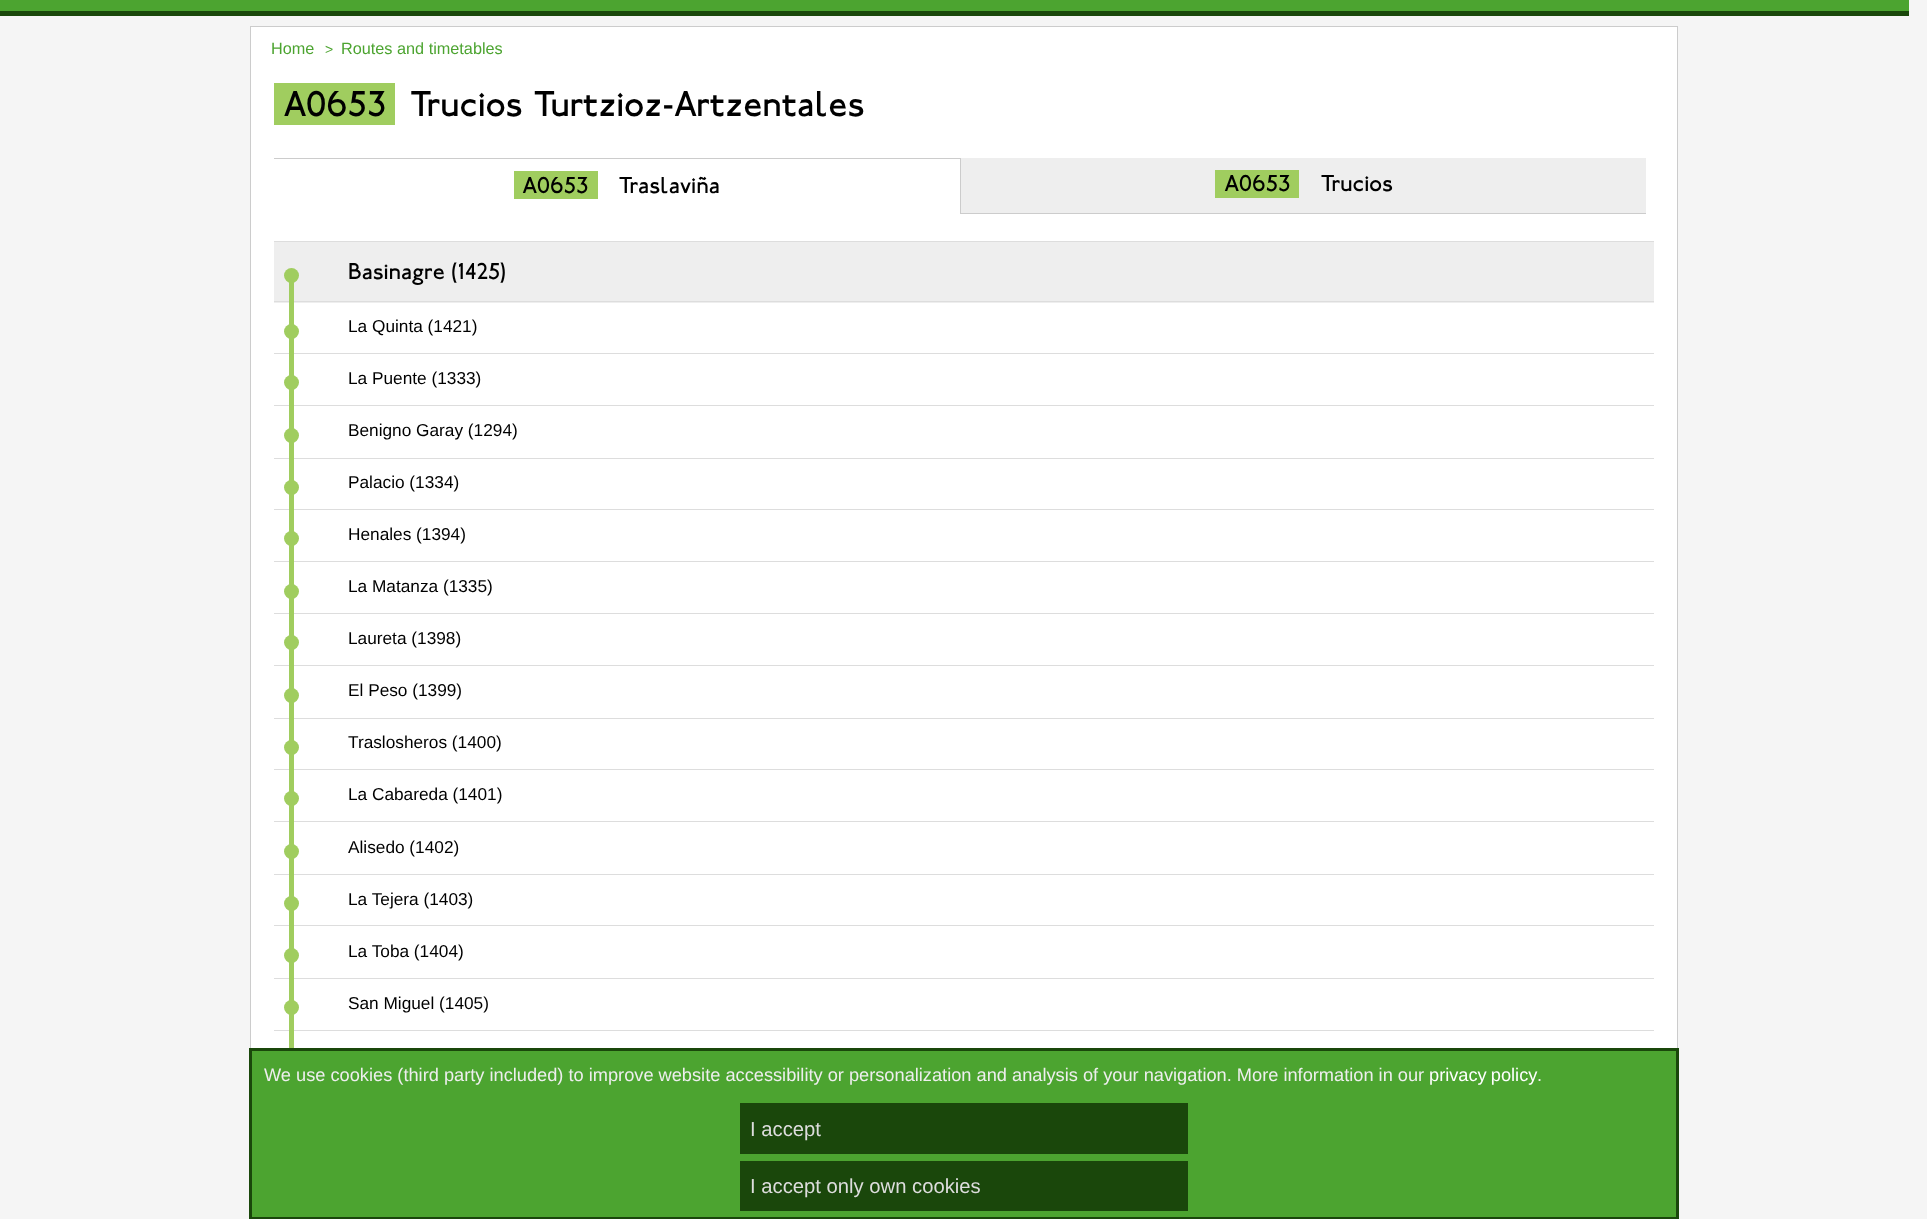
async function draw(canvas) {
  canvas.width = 1927
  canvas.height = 1219
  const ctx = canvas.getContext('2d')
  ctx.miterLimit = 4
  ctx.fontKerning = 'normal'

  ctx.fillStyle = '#f5f5f5'
  ctx.fillRect(0, 0, 1927, 1219)
  ctx.fillStyle = '#4ca430'
  ctx.fillRect(0, 0, 1909, 11)
  ctx.fillStyle = '#1a470b'
  ctx.fillRect(0, 11, 1909, 5)
  ctx.fillStyle = '#fff'
  ctx.fillRect(251, 27, 1426, 1021)
  ctx.strokeStyle = '#ccc'
  ctx.strokeRect(250.5, 26.5, 1427, 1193)
  ctx.font = '16.25px Liberation Sans'
  ctx.fillStyle = '#4ca430'
  ctx.fillText('Home', 271, 54)
  ctx.font = '14px Liberation Sans'
  ctx.fillText('>', 325, 54)
  ctx.font = '16.25px Liberation Sans'
  ctx.fillText('Routes and timetables', 341, 54)
  ctx.fillStyle = '#a0cd5f'
  ctx.fillRect(274, 83, 121, 42)
  ctx.font = '35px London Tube'
  ctx.fillStyle = '#000'
  ctx.fillText('A0653', 283, 116)
  ctx.fillText('Trucios Turtzioz-Artzentales', 409, 116)
  ctx.fillStyle = '#ccc'
  ctx.fillRect(274, 158, 687, 1)
  ctx.fillRect(960, 158, 1, 56)
  ctx.fillStyle = '#a0cd5f'
  ctx.fillRect(514, 171, 84, 28)
  ctx.font = '22.5px London Tube'
  ctx.fillStyle = '#000'
  ctx.fillText('A0653', 522, 193)
  ctx.fillText('Traslaviña', 618, 193)
  ctx.fillStyle = '#eee'
  ctx.fillRect(961, 158, 685, 55)
  ctx.fillStyle = '#ccc'
  ctx.fillRect(961, 213, 685, 1)
  ctx.fillStyle = '#a0cd5f'
  ctx.fillRect(1215, 170, 84, 28)
  ctx.fillStyle = '#000'
  ctx.fillText('A0653', 1224, 191)
  ctx.fillText('Trucios', 1320, 191)
  ctx.fillStyle = '#eee'
  ctx.fillRect(274, 242, 1380, 61)
  ctx.fillStyle = '#ddd'
  ctx.fillRect(274, 241, 1380, 1)
  ctx.fillRect(274, 301, 1380, 1)
  ctx.fillStyle = '#a0cd5f'
  ctx.beginPath()
  ctx.arc(291.5, 275.5, 7.5, 0, 2 * Math.PI)
  ctx.fill()
  ctx.beginPath()
  ctx.arc(291.5, 331.5, 7.5, 0, 2 * Math.PI)
  ctx.fill()
  ctx.fillRect(289, 282, 5, 46)
  ctx.font = '22.25px London Tube'
  ctx.fillStyle = '#000'
  ctx.fillText('Basinagre (1425)', 348, 279)
  ctx.fillStyle = '#ddd'
  ctx.fillRect(274, 353, 1380, 1)
  ctx.fillStyle = '#a0cd5f'
  ctx.beginPath()
  ctx.arc(291.5, 382.5, 7.5, 0, 2 * Math.PI)
  ctx.fill()
  ctx.fillRect(289, 330, 5, 50)
  ctx.font = '17.25px Liberation Sans'
  ctx.fillStyle = '#000'
  ctx.fillText('La Quinta (1421)', 348, 332)
  ctx.fillStyle = '#ddd'
  ctx.fillRect(274, 405, 1380, 1)
  ctx.fillStyle = '#a0cd5f'
  ctx.beginPath()
  ctx.arc(291.5, 435.5, 7.5, 0, 2 * Math.PI)
  ctx.fill()
  ctx.fillRect(289, 381, 5, 52)
  ctx.fillStyle = '#000'
  ctx.fillText('La Puente (1333)', 348, 384)
  ctx.fillStyle = '#ddd'
  ctx.fillRect(274, 458, 1380, 1)
  ctx.fillStyle = '#a0cd5f'
  ctx.beginPath()
  ctx.arc(291.5, 487.5, 7.5, 0, 2 * Math.PI)
  ctx.fill()
  ctx.fillRect(289, 434, 5, 51)
  ctx.fillStyle = '#000'
  ctx.fillText('Benigno Garay (1294)', 348, 436)
  ctx.fillStyle = '#ddd'
  ctx.fillRect(274, 509, 1380, 1)
  ctx.fillStyle = '#a0cd5f'
  ctx.beginPath()
  ctx.arc(291.5, 538.5, 7.5, 0, 2 * Math.PI)
  ctx.fill()
  ctx.fillRect(289, 486, 5, 50)
  ctx.fillStyle = '#000'
  ctx.fillText('Palacio (1334)', 348, 488)
  ctx.fillStyle = '#ddd'
  ctx.fillRect(274, 561, 1380, 1)
  ctx.fillStyle = '#a0cd5f'
  ctx.beginPath()
  ctx.arc(291.5, 591.5, 7.5, 0, 2 * Math.PI)
  ctx.fill()
  ctx.fillRect(289, 538, 5, 51)
  ctx.fillStyle = '#000'
  ctx.fillText('Henales (1394)', 348, 540)
  ctx.fillStyle = '#ddd'
  ctx.fillRect(274, 613, 1380, 1)
  ctx.fillStyle = '#a0cd5f'
  ctx.beginPath()
  ctx.arc(291.5, 642.5, 7.5, 0, 2 * Math.PI)
  ctx.fill()
  ctx.fillRect(289, 590, 5, 51)
  ctx.fillStyle = '#000'
  ctx.fillText('La Matanza (1335)', 348, 592)
  ctx.fillStyle = '#ddd'
  ctx.fillRect(274, 665, 1380, 1)
  ctx.fillStyle = '#a0cd5f'
  ctx.beginPath()
  ctx.arc(291.5, 695.5, 7.5, 0, 2 * Math.PI)
  ctx.fill()
  ctx.fillRect(289, 643, 5, 50)
  ctx.fillStyle = '#000'
  ctx.fillText('Laureta (1398)', 348, 644)
  ctx.fillStyle = '#ddd'
  ctx.fillRect(274, 718, 1380, 1)
  ctx.fillStyle = '#a0cd5f'
  ctx.beginPath()
  ctx.arc(291.5, 747.5, 7.5, 0, 2 * Math.PI)
  ctx.fill()
  ctx.fillRect(289, 694, 5, 51)
  ctx.fillStyle = '#000'
  ctx.fillText('El Peso (1399)', 348, 696)
  ctx.fillStyle = '#ddd'
  ctx.fillRect(274, 769, 1380, 1)
  ctx.fillStyle = '#a0cd5f'
  ctx.beginPath()
  ctx.arc(291.5, 798.5, 7.5, 0, 2 * Math.PI)
  ctx.fill()
  ctx.fillRect(289, 746, 5, 52)
  ctx.fillStyle = '#000'
  ctx.fillText('Traslosheros (1400)', 348, 748)
  ctx.fillStyle = '#ddd'
  ctx.fillRect(274, 821, 1380, 1)
  ctx.fillStyle = '#a0cd5f'
  ctx.beginPath()
  ctx.arc(291.5, 851.5, 7.5, 0, 2 * Math.PI)
  ctx.fill()
  ctx.fillRect(289, 799, 5, 50)
  ctx.fillStyle = '#000'
  ctx.fillText('La Cabareda (1401)', 348, 800)
  ctx.fillStyle = '#ddd'
  ctx.fillRect(274, 874, 1380, 1)
  ctx.fillStyle = '#a0cd5f'
  ctx.beginPath()
  ctx.arc(291.5, 903.5, 7.5, 0, 2 * Math.PI)
  ctx.fill()
  ctx.fillRect(289, 850, 5, 51)
  ctx.fillStyle = '#000'
  ctx.fillText('Alisedo (1402)', 348, 853)
  ctx.fillStyle = '#ddd'
  ctx.fillRect(274, 925, 1380, 1)
  ctx.fillStyle = '#a0cd5f'
  ctx.beginPath()
  ctx.arc(291.5, 955.5, 7.5, 0, 2 * Math.PI)
  ctx.fill()
  ctx.fillRect(289, 903, 5, 50)
  ctx.fillStyle = '#000'
  ctx.fillText('La Tejera (1403)', 348, 905)
  ctx.fillStyle = '#ddd'
  ctx.fillRect(274, 978, 1380, 1)
  ctx.fillStyle = '#a0cd5f'
  ctx.beginPath()
  ctx.arc(291.5, 1007.5, 7.5, 0, 2 * Math.PI)
  ctx.fill()
  ctx.fillRect(289, 954, 5, 51)
  ctx.fillStyle = '#000'
  ctx.fillText('La Toba (1404)', 348, 957)
  ctx.fillStyle = '#ddd'
  ctx.fillRect(274, 1030, 1380, 1)
  ctx.fillStyle = '#a0cd5f'
  ctx.fillRect(289, 1006, 5, 42)
  ctx.fillStyle = '#000'
  ctx.fillText('San Miguel (1405)', 348, 1009)
  ctx.fillStyle = '#4ca430'
  ctx.beginPath()
  ctx.rect(250.5, 1049.5, 1427, 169)
  ctx.fill()
  ctx.strokeStyle = '#1a470b'
  ctx.lineWidth = 3
  ctx.stroke()
  ctx.font = '18.23px Liberation Sans'
  ctx.fillStyle = '#eee'
  ctx.fillText('We use cookies (third party included) to improve website accessibility or personalization and analysis of your navigation. More information in our', 264, 1081)
  ctx.wordSpacing = '-1px'
  ctx.fillStyle = '#fff'
  ctx.fillText('privacy policy', 1429, 1081)
  ctx.wordSpacing = '0px'
  ctx.fillStyle = '#eee'
  ctx.fillText('.', 1537, 1081)
  ctx.fillStyle = '#1a470b'
  ctx.fillRect(740, 1103, 448, 51)
  ctx.font = '20.25px Liberation Sans'
  ctx.fillStyle = '#ddd'
  ctx.fillText('I accept', 750, 1136)
  ctx.fillStyle = '#1a470b'
  ctx.fillRect(740, 1161, 448, 50)
  ctx.fillStyle = '#ddd'
  ctx.fillText('I accept only own cookies', 750, 1193)
}

draw(document.querySelector('canvas'))
